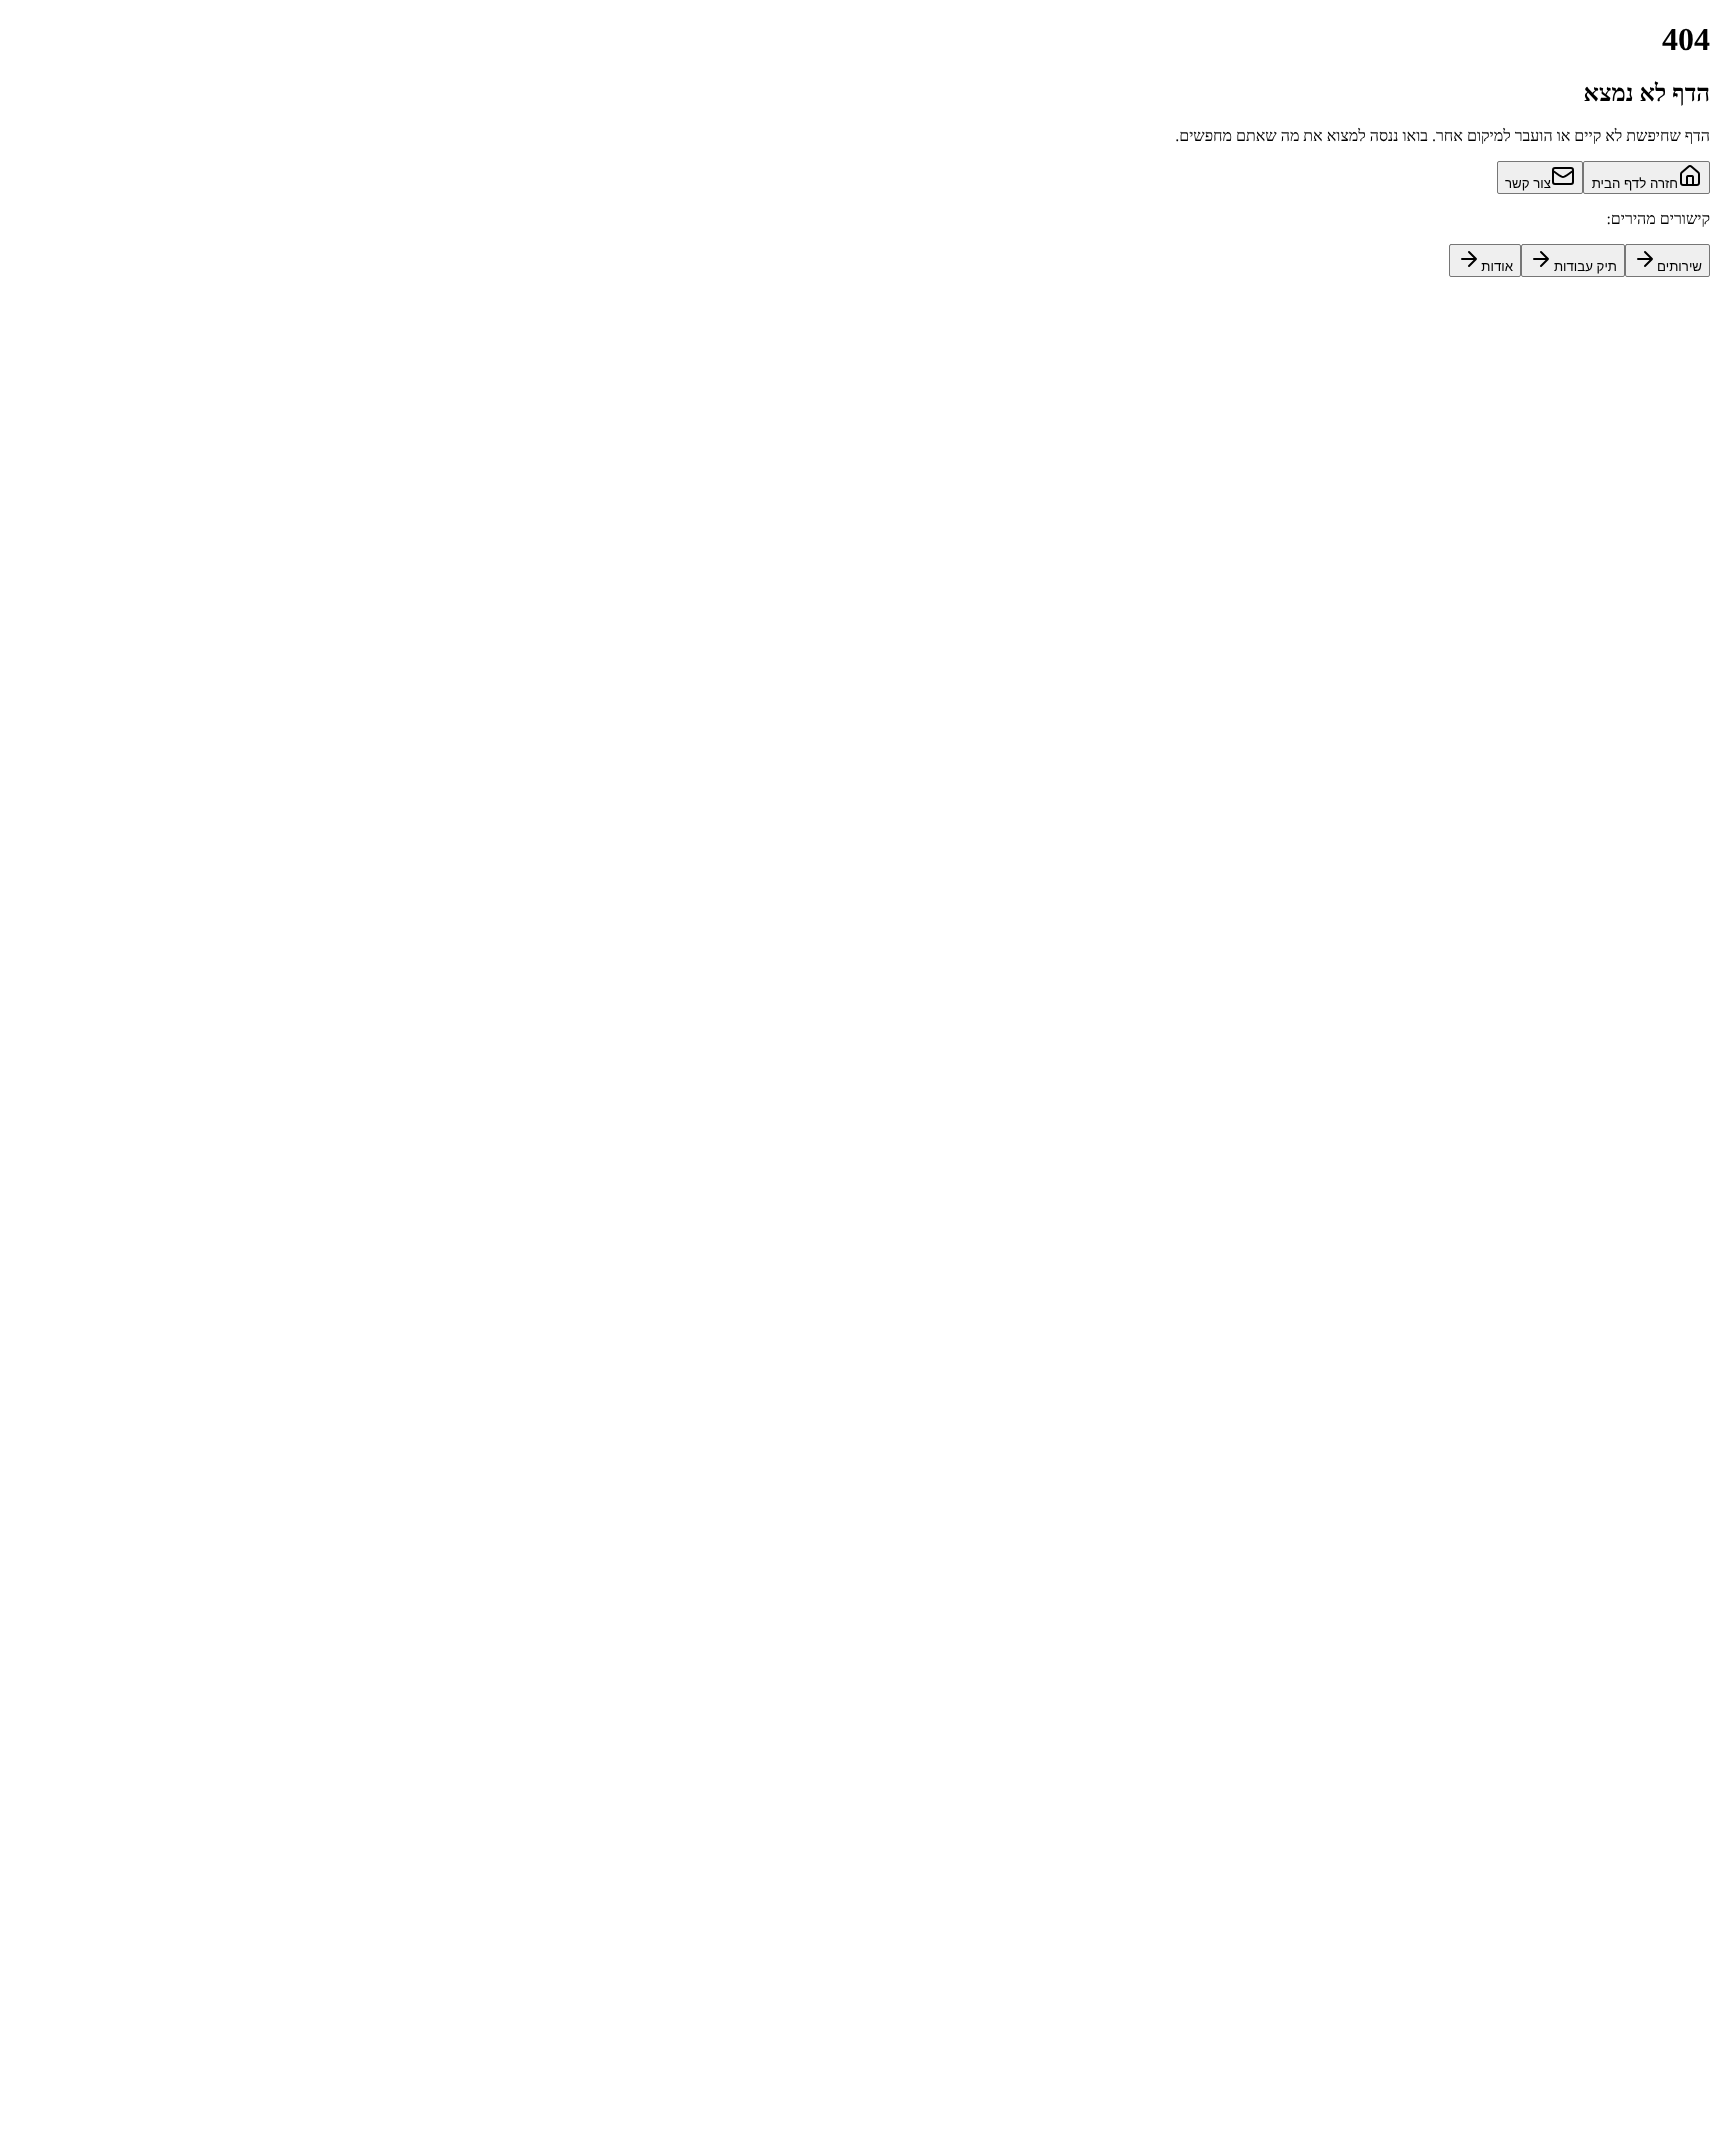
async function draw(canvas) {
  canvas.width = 1718
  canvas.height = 2151
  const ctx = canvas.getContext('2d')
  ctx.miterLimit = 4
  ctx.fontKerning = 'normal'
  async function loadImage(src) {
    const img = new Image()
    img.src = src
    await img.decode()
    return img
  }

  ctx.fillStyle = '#fff'
  ctx.fillRect(0, 0, 1718, 2151)
  ctx.font = 'bold 32px Liberation Serif'
  ctx.fillStyle = '#000'
  ctx.fillText('404', 1662, 50)
  ctx.direction = 'rtl'
  ctx.font = 'bold 24px Liberation Serif'
  ctx.fillText('הדף לא נמצא', 1710, 101)
  ctx.font = '16px Liberation Serif'
  ctx.fillText('הדף שחיפשת לא קיים או הועבר למיקום אחר. בואו ננסה למצוא את מה שאתם מחפשים.', 1710, 141)
  ctx.fillStyle = '#efefef'
  ctx.beginPath()
  ctx.roundRect(1583.5, 161.5, 126, 32, 1.5)
  ctx.fill()
  ctx.strokeStyle = '#767676'
  ctx.stroke()
  ctx.drawImage(await loadImage('image0.png'), 1680, 165, 20, 21)
  ctx.font = '13.25px Liberation Sans'
  ctx.fillStyle = '#000'
  ctx.fillText('חזרה לדף הבית', 1678, 188)
  ctx.fillStyle = '#efefef'
  ctx.beginPath()
  ctx.roundRect(1497.5, 161.5, 85, 32, 1.5)
  ctx.fill()
  ctx.stroke()
  ctx.beginPath()
  ctx.roundRect(1553, 168, 20, 16, 2)
  ctx.strokeStyle = '#000'
  ctx.lineWidth = 2
  ctx.stroke()
  ctx.beginPath()
  ctx.moveTo(1573, 171)
  ctx.bezierCurveTo(1561, 179, 1565, 179, 1553, 171)
  ctx.lineCap = 'round'
  ctx.lineJoin = 'round'
  ctx.stroke()
  ctx.fillStyle = '#000'
  ctx.fillText('צור קשר', 1551, 188)
  ctx.font = '16px Liberation Serif'
  ctx.fillText('קישורים מהירים:', 1710, 224)
  ctx.fillStyle = '#efefef'
  ctx.beginPath()
  ctx.roundRect(1625.5, 244.5, 84, 32, 1.5)
  ctx.fill()
  ctx.strokeStyle = '#767676'
  ctx.lineWidth = 1
  ctx.lineJoin = 'miter'
  ctx.stroke()
  ctx.font = '13.25px Liberation Sans'
  ctx.fillStyle = '#000'
  ctx.fillText('שירותים', 1702, 271)
  ctx.beginPath()
  ctx.moveTo(1638, 259)
  ctx.lineTo(1652, 259)
  ctx.moveTo(1645, 252)
  ctx.lineTo(1652, 259)
  ctx.lineTo(1645, 266)
  ctx.strokeStyle = '#000'
  ctx.lineWidth = 2
  ctx.lineJoin = 'round'
  ctx.stroke()
  ctx.fillStyle = '#efefef'
  ctx.beginPath()
  ctx.roundRect(1521.5, 244.5, 103, 32, 1.5)
  ctx.fill()
  ctx.strokeStyle = '#767676'
  ctx.lineWidth = 1
  ctx.lineJoin = 'miter'
  ctx.stroke()
  ctx.beginPath()
  ctx.moveTo(1534, 259)
  ctx.lineTo(1548, 259)
  ctx.moveTo(1541, 252)
  ctx.lineTo(1548, 259)
  ctx.lineTo(1541, 266)
  ctx.strokeStyle = '#000'
  ctx.lineWidth = 2
  ctx.lineJoin = 'round'
  ctx.stroke()
  ctx.fillStyle = '#000'
  ctx.fillText('תיק עבודות', 1617, 271)
  ctx.fillStyle = '#efefef'
  ctx.beginPath()
  ctx.roundRect(1449.5, 244.5, 71, 32, 1.5)
  ctx.fill()
  ctx.strokeStyle = '#767676'
  ctx.lineWidth = 1
  ctx.lineJoin = 'miter'
  ctx.stroke()
  ctx.fillStyle = '#000'
  ctx.fillText('אודות', 1513, 271)
  ctx.beginPath()
  ctx.moveTo(1462, 259)
  ctx.lineTo(1476, 259)
  ctx.moveTo(1469, 252)
  ctx.lineTo(1476, 259)
  ctx.lineTo(1469, 266)
  ctx.strokeStyle = '#000'
  ctx.lineWidth = 2
  ctx.lineJoin = 'round'
  ctx.stroke()
}

draw(document.querySelector('canvas'))
